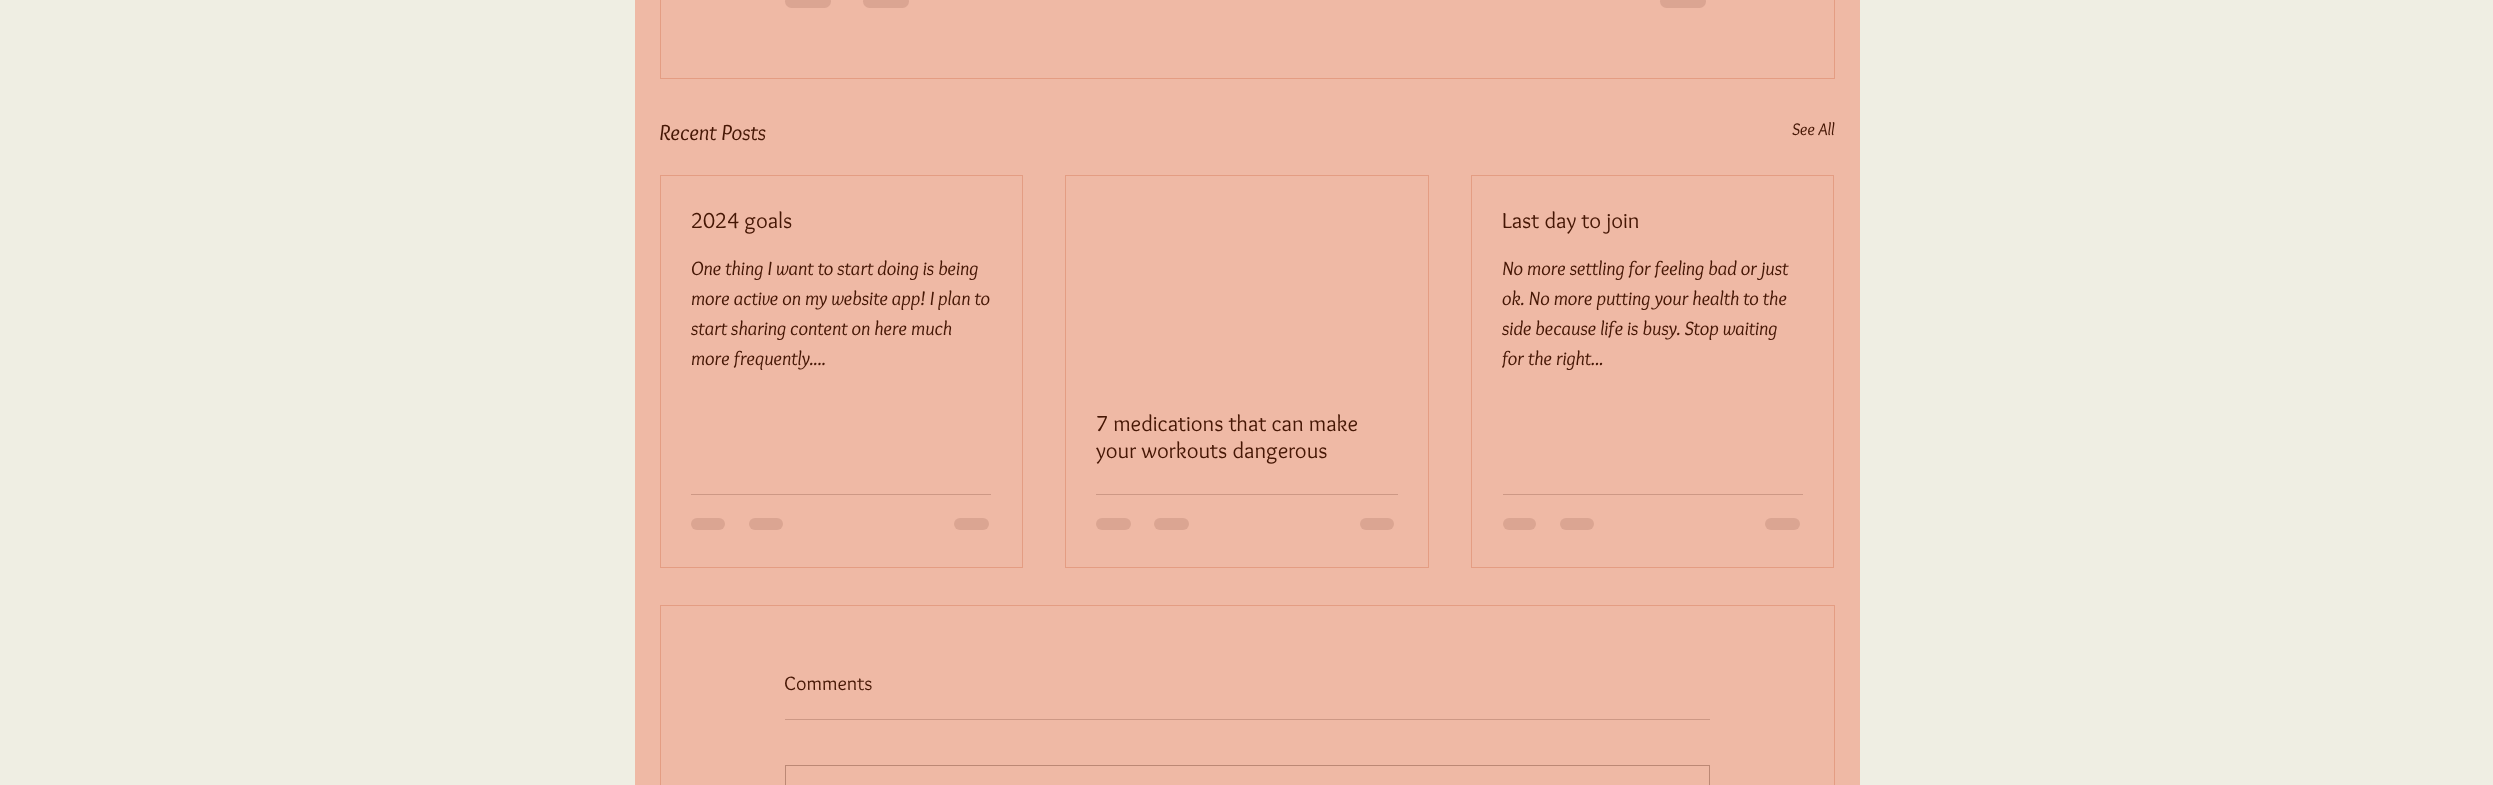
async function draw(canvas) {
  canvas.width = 2493
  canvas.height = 785
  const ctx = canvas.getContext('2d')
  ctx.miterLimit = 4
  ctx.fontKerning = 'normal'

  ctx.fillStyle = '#efeee3'
  ctx.fillRect(0, 0, 2493, 785)
  ctx.fillStyle = '#efb9a5'
  ctx.fillRect(635, 0, 1225, 785)
  ctx.strokeStyle = '#e49d83'
  ctx.strokeRect(660.5, -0.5, 1174, 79)
  ctx.fillStyle = '#dba592'
  ctx.beginPath()
  ctx.roundRect(785, -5, 46, 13, 6.5)
  ctx.fill()
  ctx.beginPath()
  ctx.roundRect(863, -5, 46, 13, 6.5)
  ctx.fill()
  ctx.beginPath()
  ctx.roundRect(1660, -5, 46, 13, 6.5)
  ctx.fill()
  ctx.font = 'italic 22.5px Overlock'
  ctx.fillStyle = '#451604'
  ctx.fillText('Recent Posts', 659, 140)
  ctx.font = 'italic 17.5px Overlock'
  ctx.fillText('See All', 1792, 135)
  ctx.strokeRect(660.5, 175.5, 362, 392)
  ctx.font = '22.5px Overlock'
  ctx.fillText('2024 goals', 691, 228)
  ctx.font = 'italic 20px Overlock'
  ctx.fillText('One thing I want to start doing is being', 691, 275)
  ctx.fillText('more active on my website app! I plan to', 691, 305)
  ctx.fillText('start sharing content on here much', 691, 335)
  ctx.fillText('more frequently....', 691, 365)
  ctx.fillStyle = '#cd9885'
  ctx.fillRect(691, 494, 300, 1)
  ctx.fillStyle = '#dba592'
  ctx.beginPath()
  ctx.roundRect(691, 518, 34, 12, 6)
  ctx.fill()
  ctx.beginPath()
  ctx.roundRect(749, 518, 34, 12, 6)
  ctx.fill()
  ctx.beginPath()
  ctx.roundRect(954, 518, 35, 12, 6)
  ctx.fill()
  ctx.strokeRect(1471.5, 175.5, 362, 392)
  ctx.font = '22.5px Overlock'
  ctx.fillStyle = '#451604'
  ctx.fillText('Last day to join', 1502, 228)
  ctx.font = 'italic 20px Overlock'
  ctx.fillText('No more settling for feeling bad or just', 1502, 275)
  ctx.fillText('ok. No more putting your health to the', 1502, 305)
  ctx.fillText('side because life is busy. Stop waiting', 1502, 335)
  ctx.fillText('for the right...', 1502, 365)
  ctx.fillStyle = '#cd9885'
  ctx.fillRect(1503, 494, 300, 1)
  ctx.fillStyle = '#dba592'
  ctx.beginPath()
  ctx.roundRect(1503, 518, 33, 12, 6)
  ctx.fill()
  ctx.beginPath()
  ctx.roundRect(1560, 518, 34, 12, 6)
  ctx.fill()
  ctx.beginPath()
  ctx.roundRect(1765, 518, 35, 12, 6)
  ctx.fill()
  ctx.strokeRect(1065.5, 175.5, 363, 392)
  ctx.font = '22.5px Overlock'
  ctx.fillStyle = '#451604'
  ctx.fillText('7 medications that can make', 1096, 431)
  ctx.fillText('your workouts dangerous', 1096, 458)
  ctx.fillStyle = '#cd9885'
  ctx.fillRect(1096, 494, 302, 1)
  ctx.fillStyle = '#dba592'
  ctx.beginPath()
  ctx.roundRect(1096, 518, 35, 12, 6)
  ctx.fill()
  ctx.beginPath()
  ctx.roundRect(1154, 518, 35, 12, 6)
  ctx.fill()
  ctx.beginPath()
  ctx.roundRect(1360, 518, 34, 12, 6)
  ctx.fill()
  ctx.strokeRect(660.5, 605.5, 1174, 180)
  ctx.font = '20px Overlock'
  ctx.fillStyle = '#451604'
  ctx.fillText('Comments', 784, 690)
  ctx.fillStyle = '#cd9885'
  ctx.fillRect(785, 719, 925, 1)
  ctx.strokeStyle = '#bc8875'
  ctx.strokeRect(785.5, 765.5, 924, 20)
}

draw(document.querySelector('canvas'))
